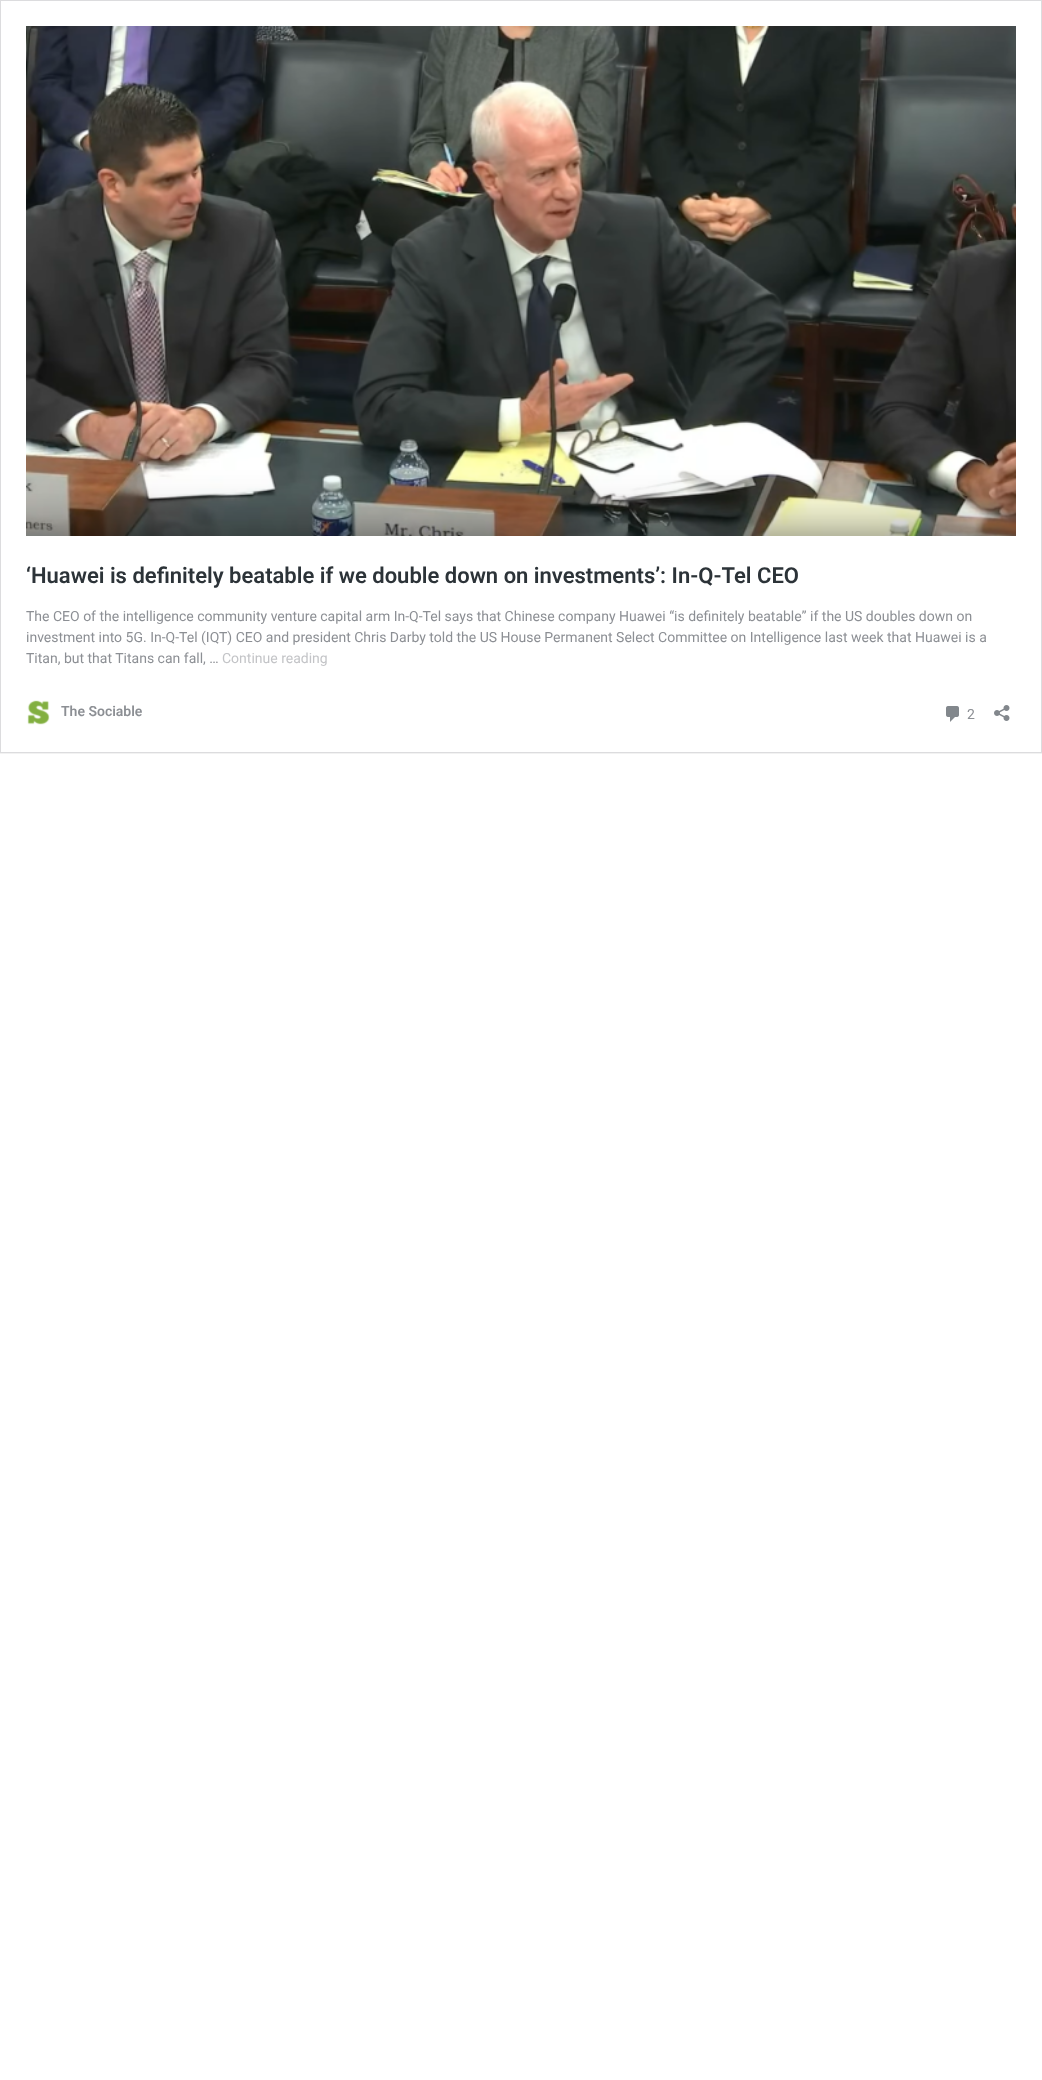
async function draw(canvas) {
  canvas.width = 1042
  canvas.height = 2080
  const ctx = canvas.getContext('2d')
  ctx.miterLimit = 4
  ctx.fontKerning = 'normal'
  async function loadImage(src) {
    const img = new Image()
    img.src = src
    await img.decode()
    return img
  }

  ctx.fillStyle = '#fff'
  ctx.fillRect(0, 0, 1042, 2080)
  ctx.save()
  ctx.beginPath()
  ctx.rect(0, 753, 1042, 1)
  ctx.clip()
  ctx.fillStyle = '#0000000d'
  ctx.filter = 'blur(0.5px)'
  ctx.beginPath()
  ctx.rect(0, 1, 1042, 753)
  ctx.fill()
  ctx.filter = 'none'
  ctx.restore()
  ctx.strokeStyle = '#dcdcde'
  ctx.strokeRect(0.5, 0.5, 1041, 752)
  ctx.drawImage(await loadImage('image0.png'), 26, 26, 990, 510)
  ctx.font = '600 22px Roboto'
  ctx.fillStyle = '#2c3338'
  ctx.fillText('‘Huawei is definitely beatable if we double down on investments’: In-Q-Tel CEO', 26, 583)
  ctx.font = '14px Roboto'
  ctx.fillStyle = '#8c8f94'
  ctx.fillText('The CEO of the intelligence community venture capital arm In-Q-Tel says that Chinese company Huawei “is definitely beatable” if the US doubles down on', 26, 621)
  ctx.fillText('investment into 5G. In-Q-Tel (IQT) CEO and president Chris Darby told the US House Permanent Select Committee on Intelligence last week that Huawei is a', 26, 642)
  ctx.fillText('Titan, but that Titans can fall, …', 26, 663)
  ctx.fillStyle = '#c3c4c7'
  ctx.fillText('Continue reading', 222, 663)
  ctx.drawImage(await loadImage('image1.png'), 27, 700, 23, 25)
  ctx.font = '600 14px Roboto'
  ctx.fillStyle = '#8c8f94'
  ctx.fillText('The Sociable', 61, 716)
  ctx.drawImage(await loadImage('image2.png'), 946, 706, 13, 16)
  ctx.font = '14px Roboto'
  ctx.fillText('2', 967, 719)
  ctx.drawImage(await loadImage('image3.png'), 994, 705, 16, 16)
}

draw(document.querySelector('canvas'))
